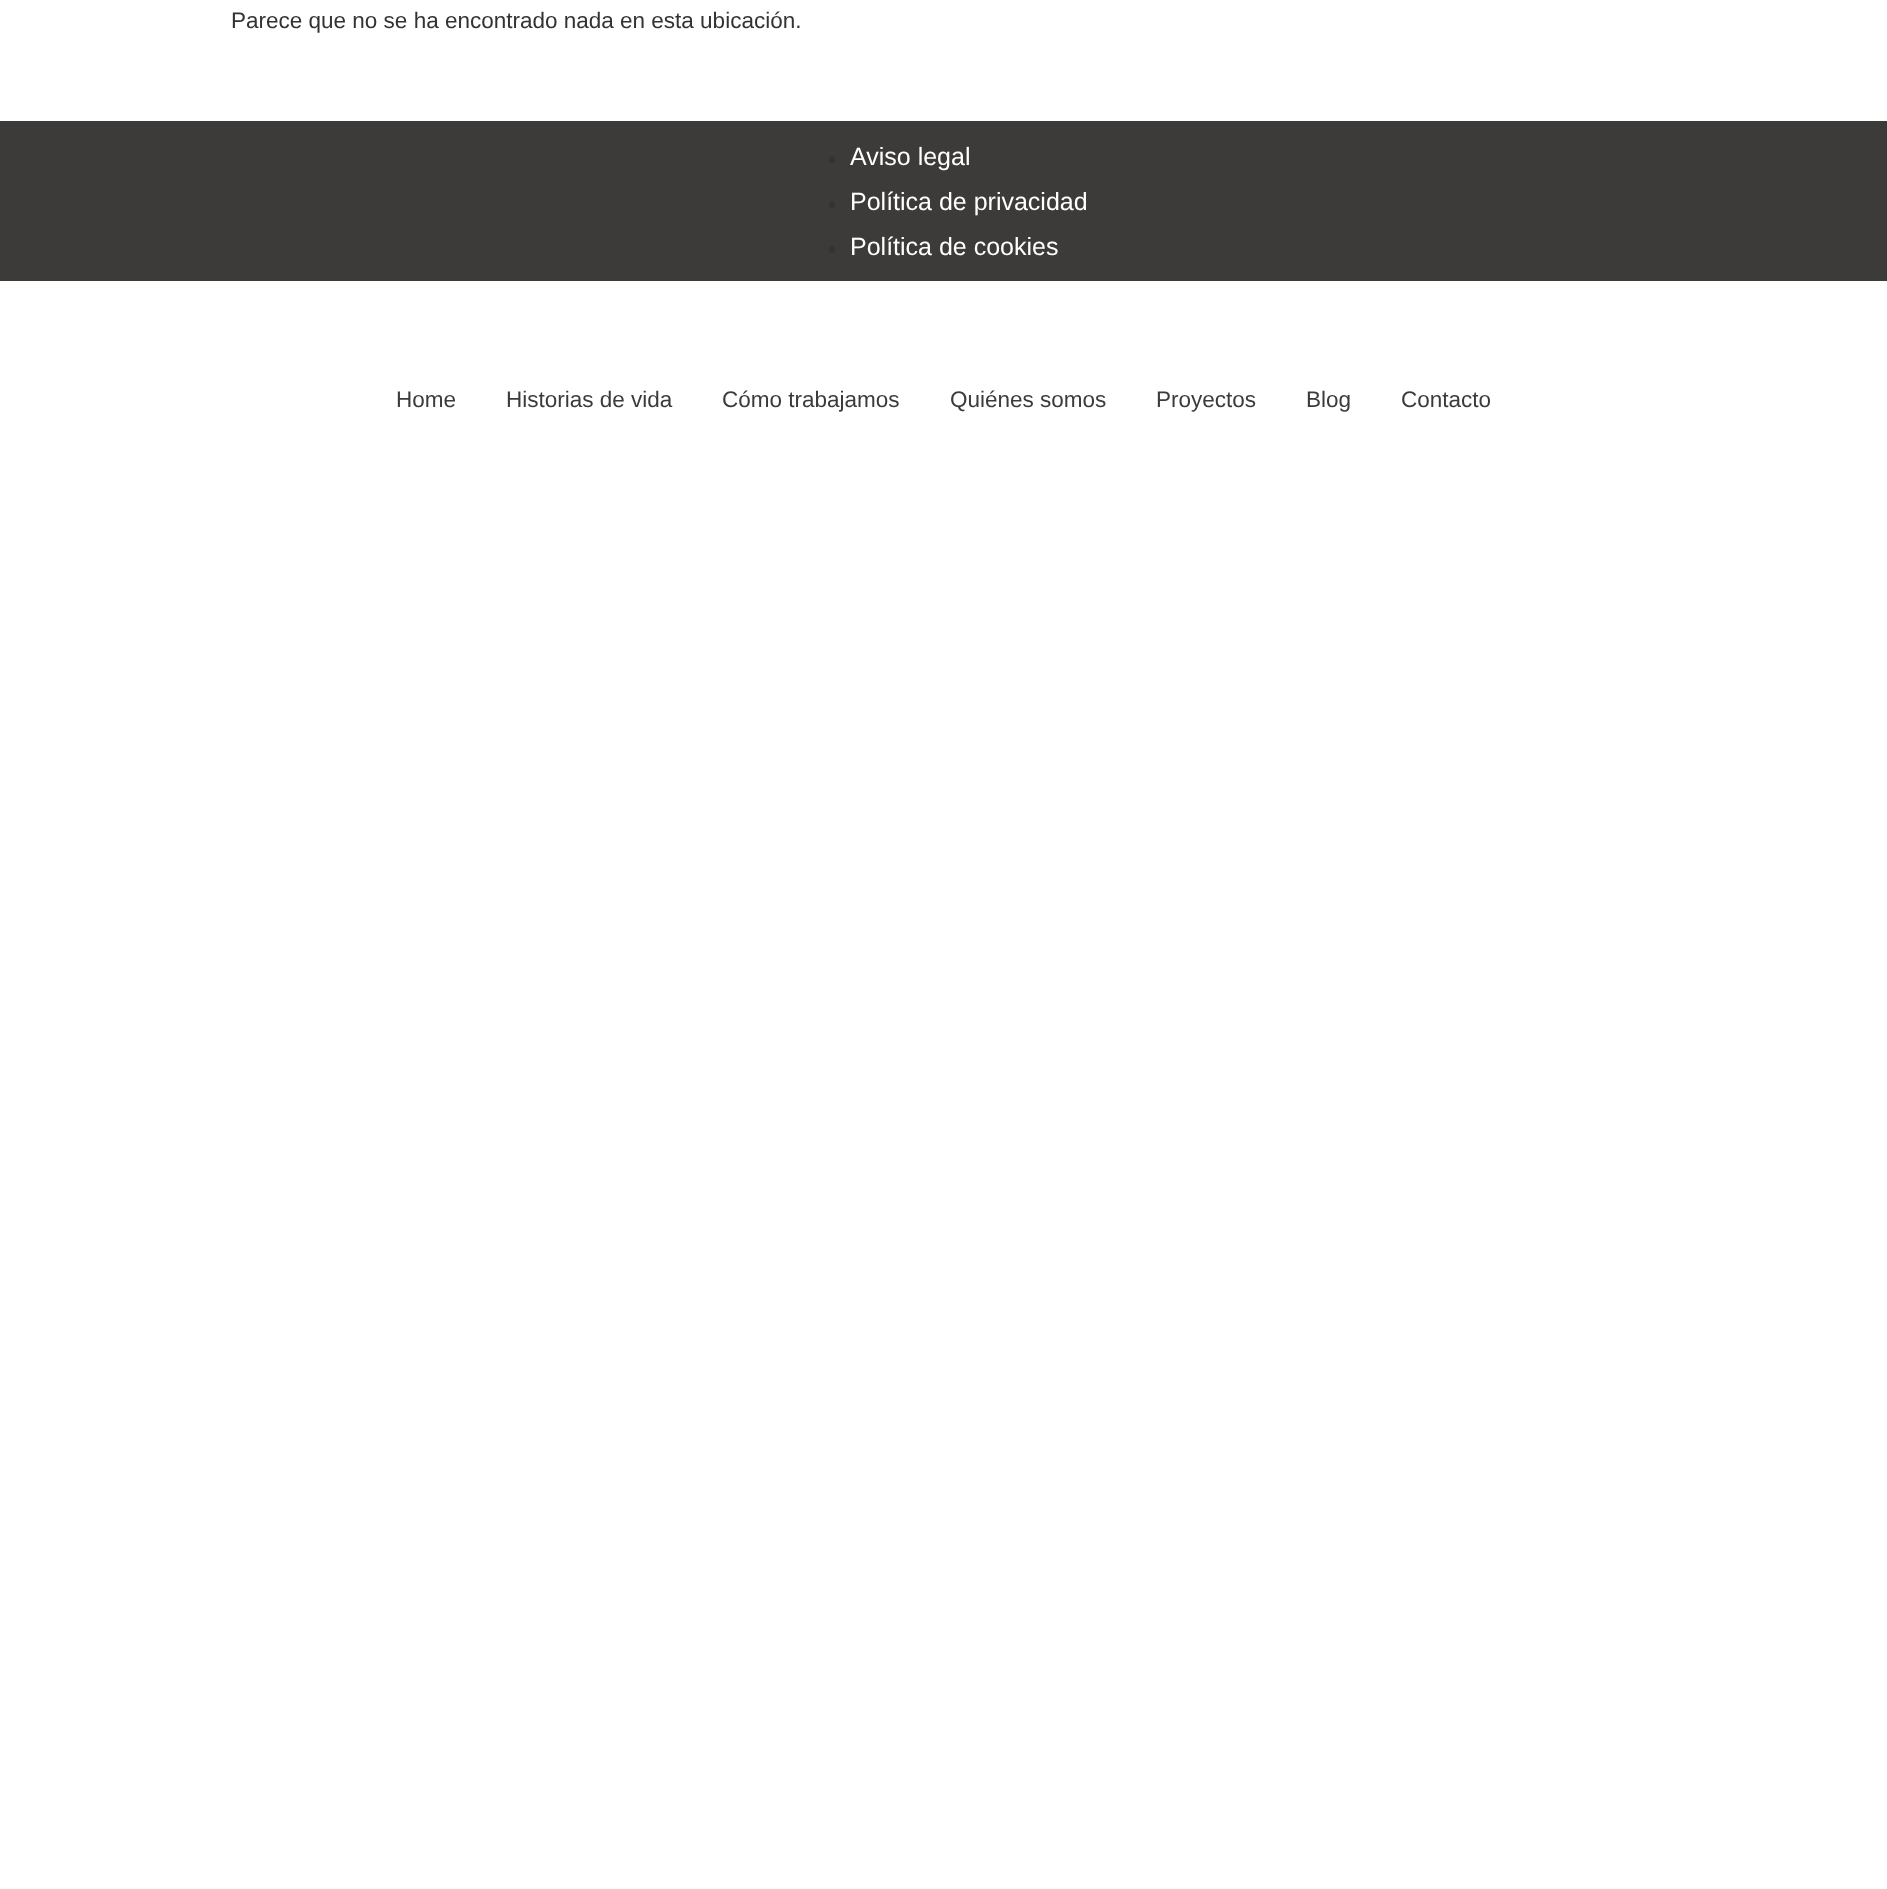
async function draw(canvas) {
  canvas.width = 1887
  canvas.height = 1889
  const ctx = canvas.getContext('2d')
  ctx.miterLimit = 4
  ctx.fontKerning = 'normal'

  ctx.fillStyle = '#fff'
  ctx.fillRect(0, 0, 1887, 1889)
  ctx.font = '22.5px Liberation Sans'
  ctx.fillStyle = '#333'
  ctx.fillText('Parece que no se ha encontrado nada en esta ubicación.', 231, 28)
  ctx.fillStyle = '#3d3b3a'
  ctx.fillRect(0, 121, 1887, 160)
  ctx.fillStyle = '#333'
  ctx.beginPath()
  ctx.roundRect(829, 156, 6, 7, 3)
  ctx.fill()
  ctx.font = '25px Liberation Sans'
  ctx.fillStyle = '#fff'
  ctx.fillText('Aviso legal', 850, 165)
  ctx.fillStyle = '#333'
  ctx.beginPath()
  ctx.roundRect(829, 201, 6, 7, 3)
  ctx.fill()
  ctx.fillStyle = '#fff'
  ctx.fillText('Política de privacidad', 850, 210)
  ctx.fillStyle = '#333'
  ctx.beginPath()
  ctx.roundRect(829, 246, 6, 7, 3)
  ctx.fill()
  ctx.fillStyle = '#fff'
  ctx.fillText('Política de cookies', 850, 255)
  ctx.font = '22.5px Liberation Sans'
  ctx.fillStyle = '#3d3b3a'
  ctx.fillText('Home', 396, 407)
  ctx.fillText('Historias de vida', 506, 407)
  ctx.fillText('Cómo trabajamos', 722, 407)
  ctx.fillText('Quiénes somos', 950, 407)
  ctx.fillText('Proyectos', 1156, 407)
  ctx.fillText('Blog', 1306, 407)
  ctx.fillText('Contacto', 1401, 407)
}

draw(document.querySelector('canvas'))
